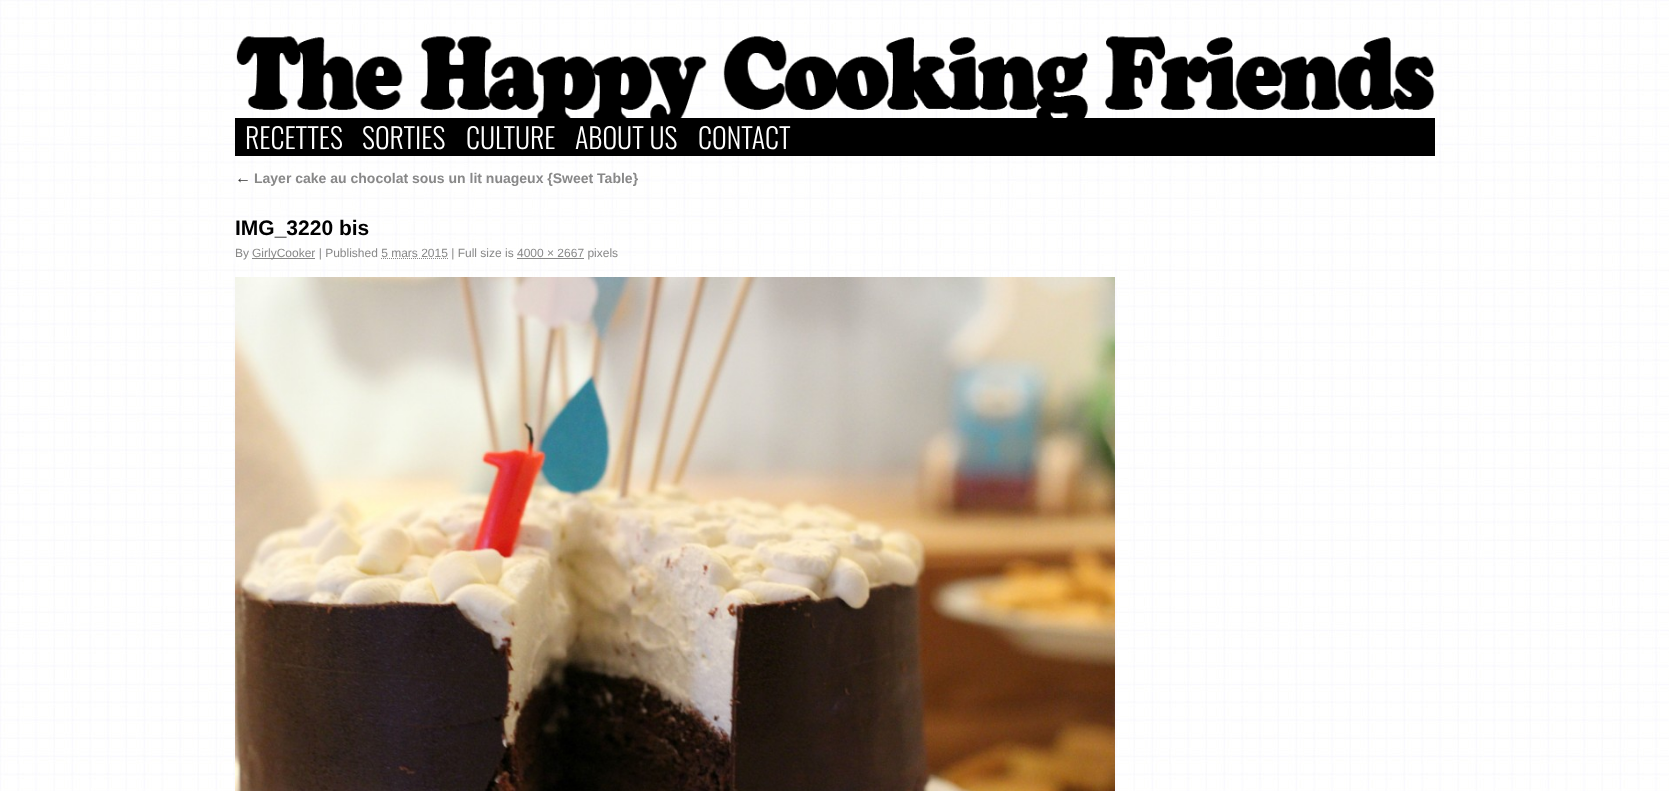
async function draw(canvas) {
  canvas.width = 1669
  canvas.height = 791
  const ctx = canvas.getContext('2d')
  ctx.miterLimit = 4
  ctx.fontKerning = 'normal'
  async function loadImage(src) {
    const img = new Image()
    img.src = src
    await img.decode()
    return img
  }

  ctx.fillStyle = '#fff'
  ctx.fillRect(0, 0, 1669, 791)
  ctx.drawImage(await loadImage('image0.png'), 0, 0, 1669, 791)
  ctx.drawImage(await loadImage('image1.png'), 236, 36, 1199, 82)
  ctx.fillStyle = '#000'
  ctx.fillRect(235, 118, 1200, 38)
  ctx.font = '300 28px Oswald'
  ctx.fillStyle = '#fff'
  ctx.fillText('RECETTES', 245, 149)
  ctx.fillText('SORTIES', 362, 149)
  ctx.fillText('CULTURE', 466, 149)
  ctx.fillText('ABOUT US', 575, 149)
  ctx.fillText('CONTACT', 698, 149)
  ctx.font = 'italic 16px Liberation Serif'
  ctx.fillStyle = '#333'
  ctx.fillText('←', 235, 183)
  ctx.font = 'bold 14px Liberation Sans'
  ctx.fillStyle = '#888'
  ctx.fillText('Layer cake au chocolat sous un lit nuageux {Sweet Table}', 254, 183)
  ctx.font = 'bold 21px Liberation Sans'
  ctx.fillStyle = '#000'
  ctx.fillText('IMG_3220 bis', 235, 235)
  ctx.font = '12px Liberation Sans'
  ctx.fillStyle = '#888'
  ctx.fillText('By', 235, 257)
  ctx.fillRect(252, 258, 63, 1)
  ctx.fillText('GirlyCooker | Published 5 mars 2015 | Full size is 4000 × 2667 pixels', 252, 257)
  ctx.beginPath()
  ctx.moveTo(381, 258.5)
  ctx.lineTo(448, 258.5)
  ctx.strokeStyle = '#888'
  ctx.setLineDash([1, 1])
  ctx.stroke()
  ctx.fillRect(517, 258, 67, 1)
  ctx.drawImage(await loadImage('image2.png'), 235, 277, 880, 514)
}

draw(document.querySelector('canvas'))
